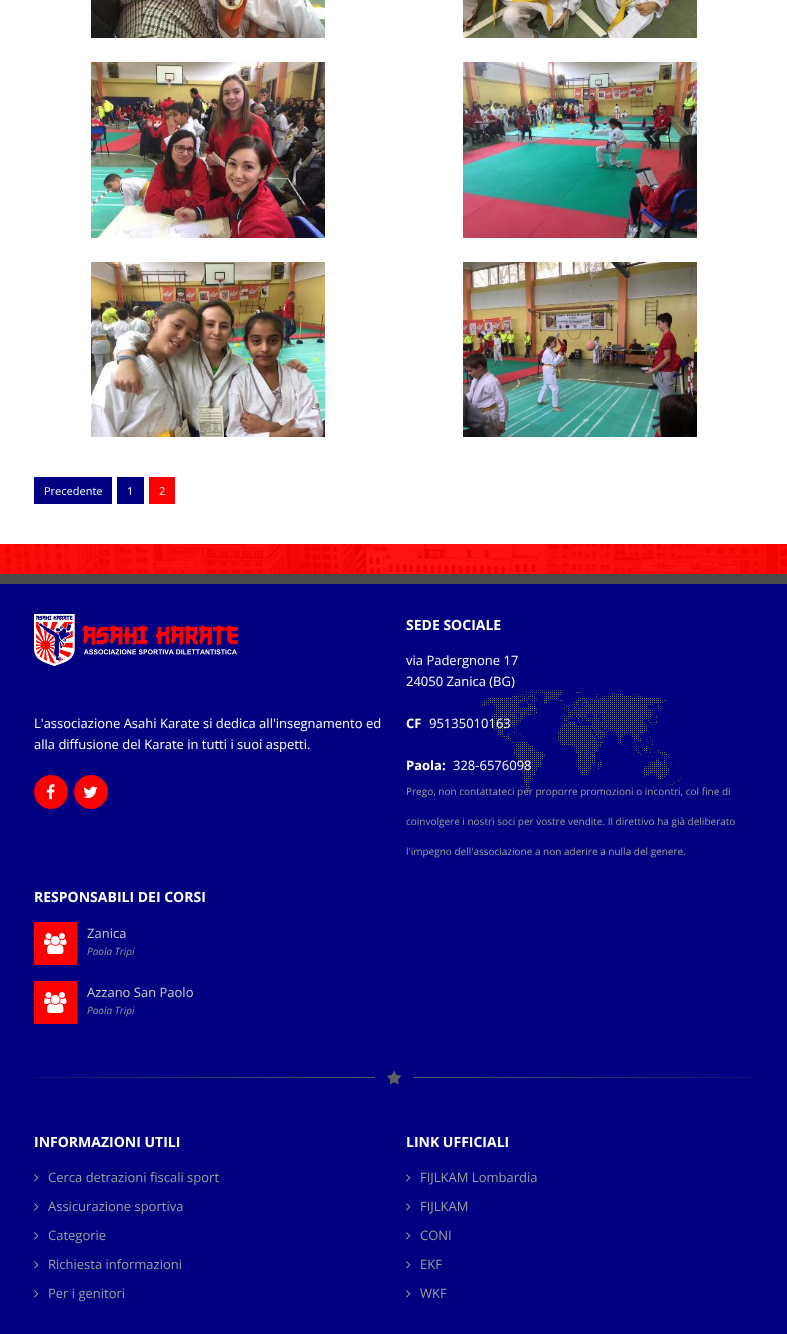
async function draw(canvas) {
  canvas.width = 787
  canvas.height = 1334
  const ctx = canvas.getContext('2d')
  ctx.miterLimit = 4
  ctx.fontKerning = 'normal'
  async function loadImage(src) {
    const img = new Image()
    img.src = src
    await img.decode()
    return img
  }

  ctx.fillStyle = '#fff'
  ctx.fillRect(0, 0, 787, 1334)
  ctx.drawImage(await loadImage('image0.png'), 91, 0, 234, 38)
  ctx.drawImage(await loadImage('image1.png'), 463, 0, 234, 38)
  ctx.drawImage(await loadImage('image2.png'), 91, 62, 234, 176)
  ctx.drawImage(await loadImage('image3.png'), 463, 62, 234, 176)
  ctx.drawImage(await loadImage('image4.png'), 91, 262, 234, 175)
  ctx.drawImage(await loadImage('image5.png'), 463, 262, 234, 175)
  ctx.fillStyle = '#000080'
  ctx.fillRect(34, 477, 78, 27)
  ctx.font = '11px Open Sans'
  ctx.fillStyle = '#f7f7f7'
  ctx.fillText('Precedente', 44, 495)
  ctx.fillStyle = '#000080'
  ctx.fillRect(117, 477, 27, 27)
  ctx.fillStyle = '#f7f7f7'
  ctx.fillText('1', 127, 495)
  ctx.fillStyle = '#f00'
  ctx.fillRect(149, 477, 26, 27)
  ctx.fillStyle = '#f7f7f7'
  ctx.fillText('2', 159, 495)
  ctx.fillStyle = '#f00'
  ctx.fillRect(0, 544, 787, 30)
  ctx.drawImage(await loadImage('image6.png'), 0, 544, 787, 30)
  ctx.fillStyle = '#000080'
  ctx.fillRect(0, 584, 787, 750)
  ctx.fillStyle = '#494949'
  ctx.fillRect(0, 574, 787, 10)
  ctx.drawImage(await loadImage('image7.png'), 34, 614, 204, 52)
  ctx.font = '13px Open Sans'
  ctx.fillStyle = '#fff'
  ctx.fillText('L\'associazione Asahi Karate si dedica all\'insegnamento ed', 34, 728)
  ctx.fillText('alla diffusione del Karate in tutti i suoi aspetti.', 34, 749)
  ctx.fillStyle = '#f00'
  ctx.beginPath()
  ctx.arc(51, 792, 17, 0, 2 * Math.PI)
  ctx.fill()
  ctx.drawImage(await loadImage('image8.png'), 46, 784, 9, 16)
  ctx.beginPath()
  ctx.arc(91, 792, 17, 0, 2 * Math.PI)
  ctx.fill()
  ctx.drawImage(await loadImage('image9.png'), 83, 786, 15, 12)
  ctx.drawImage(await loadImage('image10.png'), 478, 690, 203, 101)
  ctx.font = 'bold 14px Open Sans'
  ctx.fillStyle = '#fff'
  ctx.fillText('SEDE SOCIALE', 406, 630)
  ctx.font = '13px Open Sans'
  ctx.fillText('via Padergnone 17', 406, 665)
  ctx.fillText('24050 Zanica (BG)', 406, 686)
  ctx.font = 'bold 13px Open Sans'
  ctx.fillText('CF', 406, 728)
  ctx.font = '13px Open Sans'
  ctx.fillText('95135010163', 429, 728)
  ctx.font = 'bold 13px Open Sans'
  ctx.fillText('Paola:', 406, 770)
  ctx.font = '13px Open Sans'
  ctx.fillText('328-6576098', 453, 770)
  ctx.font = '10px Open Sans'
  ctx.fillStyle = '#9f9f9f'
  ctx.fillText('Prego, non contattateci per proporre promozioni o incontri, col fine di', 406, 795)
  ctx.fillText('coinvolgere i nostri soci per vostre vendite. Il direttivo ha già deliberato', 406, 825)
  ctx.fillText('l\'impegno dell\'associazione a non aderire a nulla del genere.', 406, 855)
  ctx.font = 'bold 14px Open Sans'
  ctx.fillStyle = '#fff'
  ctx.fillText('RESPONSABILI DEI CORSI', 34, 902)
  ctx.fillStyle = '#f00'
  ctx.fillRect(34, 922, 43, 43)
  ctx.drawImage(await loadImage('image11.png'), 44, 933, 23, 21)
  ctx.font = '13px Open Sans'
  ctx.fillStyle = '#ccc'
  ctx.fillText('Zanica', 87, 938)
  ctx.font = 'italic 10px Open Sans'
  ctx.fillStyle = '#969696'
  ctx.fillText('Paola Tripi', 87, 955)
  ctx.fillStyle = '#f00'
  ctx.fillRect(34, 981, 43, 43)
  ctx.drawImage(await loadImage('image11.png'), 44, 992, 23, 21)
  ctx.font = '13px Open Sans'
  ctx.fillStyle = '#ccc'
  ctx.fillText('Azzano San Paolo', 87, 997)
  ctx.font = 'italic 10px Open Sans'
  ctx.fillStyle = '#969696'
  ctx.fillText('Paola Tripi', 87, 1014)
  ctx.drawImage(await loadImage('image12.png'), 34, 1070, 720, 15)
  ctx.font = 'bold 14px Open Sans'
  ctx.fillStyle = '#fff'
  ctx.fillText('INFORMAZIONI UTILI', 34, 1147)
  ctx.drawImage(await loadImage('image13.png'), 34, 1174, 5, 8)
  ctx.font = '13px Open Sans'
  ctx.fillStyle = '#9f9f9f'
  ctx.fillText('Cerca detrazioni fiscali sport', 48, 1182)
  ctx.drawImage(await loadImage('image13.png'), 34, 1203, 5, 8)
  ctx.fillText('Assicurazione sportiva', 48, 1211)
  ctx.drawImage(await loadImage('image13.png'), 34, 1232, 5, 8)
  ctx.fillText('Categorie', 48, 1240)
  ctx.drawImage(await loadImage('image13.png'), 34, 1261, 5, 8)
  ctx.fillText('Richiesta informazioni', 48, 1269)
  ctx.drawImage(await loadImage('image13.png'), 34, 1290, 5, 8)
  ctx.fillText('Per i genitori', 48, 1298)
  ctx.font = 'bold 14px Open Sans'
  ctx.fillStyle = '#fff'
  ctx.fillText('LINK UFFICIALI', 406, 1147)
  ctx.drawImage(await loadImage('image13.png'), 406, 1174, 5, 8)
  ctx.font = '13px Open Sans'
  ctx.fillStyle = '#9f9f9f'
  ctx.fillText('FIJLKAM Lombardia', 420, 1182)
  ctx.drawImage(await loadImage('image13.png'), 406, 1203, 5, 8)
  ctx.fillText('FIJLKAM', 420, 1211)
  ctx.drawImage(await loadImage('image13.png'), 406, 1232, 5, 8)
  ctx.fillText('CONI', 420, 1240)
  ctx.drawImage(await loadImage('image13.png'), 406, 1261, 5, 8)
  ctx.fillText('EKF', 420, 1269)
  ctx.drawImage(await loadImage('image13.png'), 406, 1290, 5, 8)
  ctx.fillText('WKF', 420, 1298)
}

draw(document.querySelector('canvas'))
